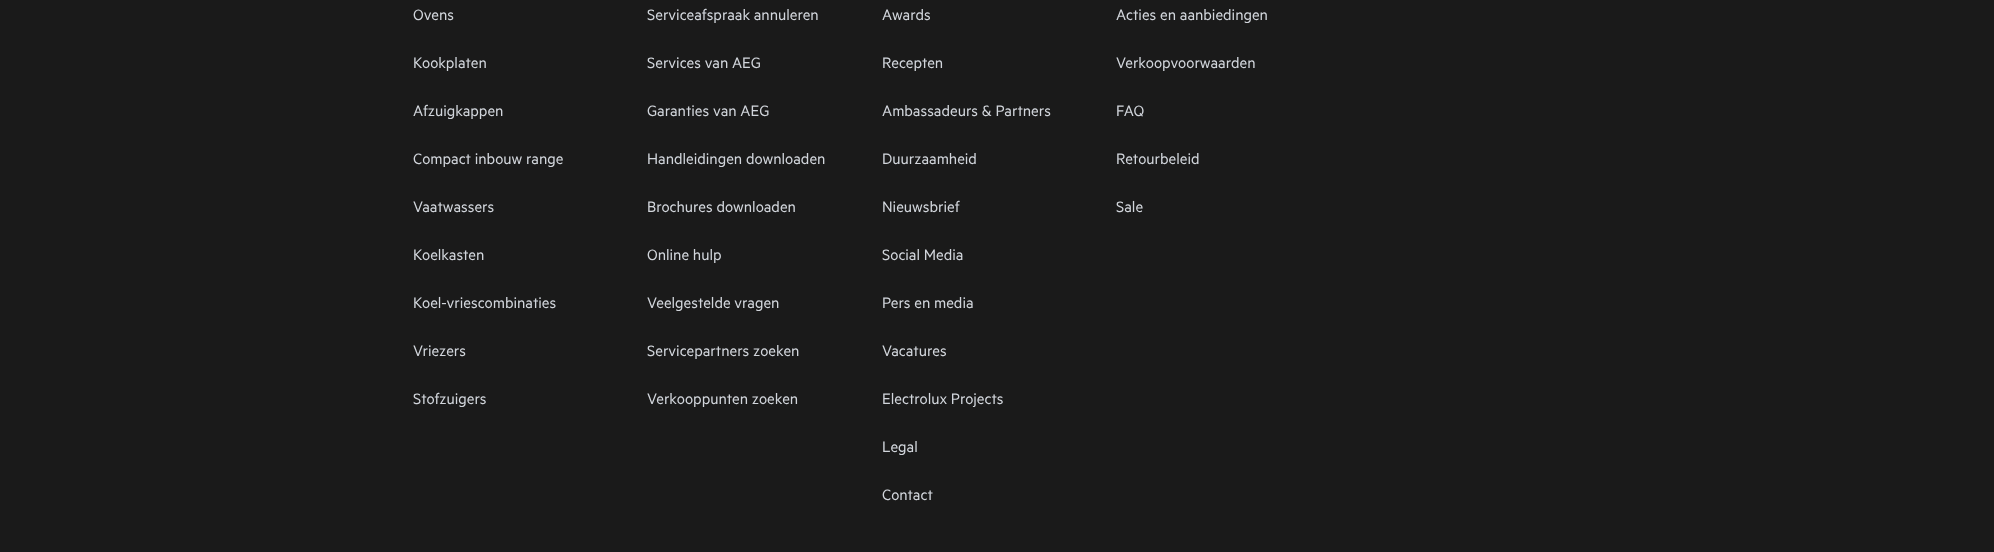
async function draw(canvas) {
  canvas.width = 1994
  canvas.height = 552
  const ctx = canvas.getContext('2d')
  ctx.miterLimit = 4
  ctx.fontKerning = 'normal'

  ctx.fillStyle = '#1a1a1a'
  ctx.fillRect(0, 0, 1994, 552)
  ctx.font = '17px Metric'
  ctx.fillStyle = '#d1d5db'
  ctx.fillText('Ovens', 413, 20)
  ctx.fillText('Serviceafspraak annuleren', 647, 20)
  ctx.fillText('Awards', 882, 20)
  ctx.fillText('Acties en aanbiedingen', 1116, 20)
  ctx.fillText('Kookplaten', 413, 68)
  ctx.fillText('Services van AEG', 647, 68)
  ctx.fillText('Recepten', 882, 68)
  ctx.fillText('Verkoopvoorwaarden', 1116, 68)
  ctx.fillText('Afzuigkappen', 413, 116)
  ctx.fillText('Garanties van AEG', 647, 116)
  ctx.fillText('Ambassadeurs & Partners', 882, 116)
  ctx.fillText('FAQ', 1116, 116)
  ctx.fillText('Compact inbouw range', 413, 164)
  ctx.fillText('Handleidingen downloaden', 647, 164)
  ctx.fillText('Duurzaamheid', 882, 164)
  ctx.fillText('Retourbeleid', 1116, 164)
  ctx.fillText('Vaatwassers', 413, 212)
  ctx.fillText('Brochures downloaden', 647, 212)
  ctx.fillText('Nieuwsbrief', 882, 212)
  ctx.fillText('Sale', 1116, 212)
  ctx.fillText('Koelkasten', 413, 260)
  ctx.fillText('Online hulp', 647, 260)
  ctx.fillText('Social Media', 882, 260)
  ctx.fillText('Koel-vriescombinaties', 413, 308)
  ctx.fillText('Veelgestelde vragen', 647, 308)
  ctx.fillText('Pers en media', 882, 308)
  ctx.fillText('Vriezers', 413, 356)
  ctx.fillText('Servicepartners zoeken', 647, 356)
  ctx.fillText('Vacatures', 882, 356)
  ctx.fillText('Stofzuigers', 413, 404)
  ctx.fillText('Verkooppunten zoeken', 647, 404)
  ctx.fillText('Electrolux Projects', 882, 404)
  ctx.fillText('Legal', 882, 452)
  ctx.fillText('Contact', 882, 500)
}

draw(document.querySelector('canvas'))
